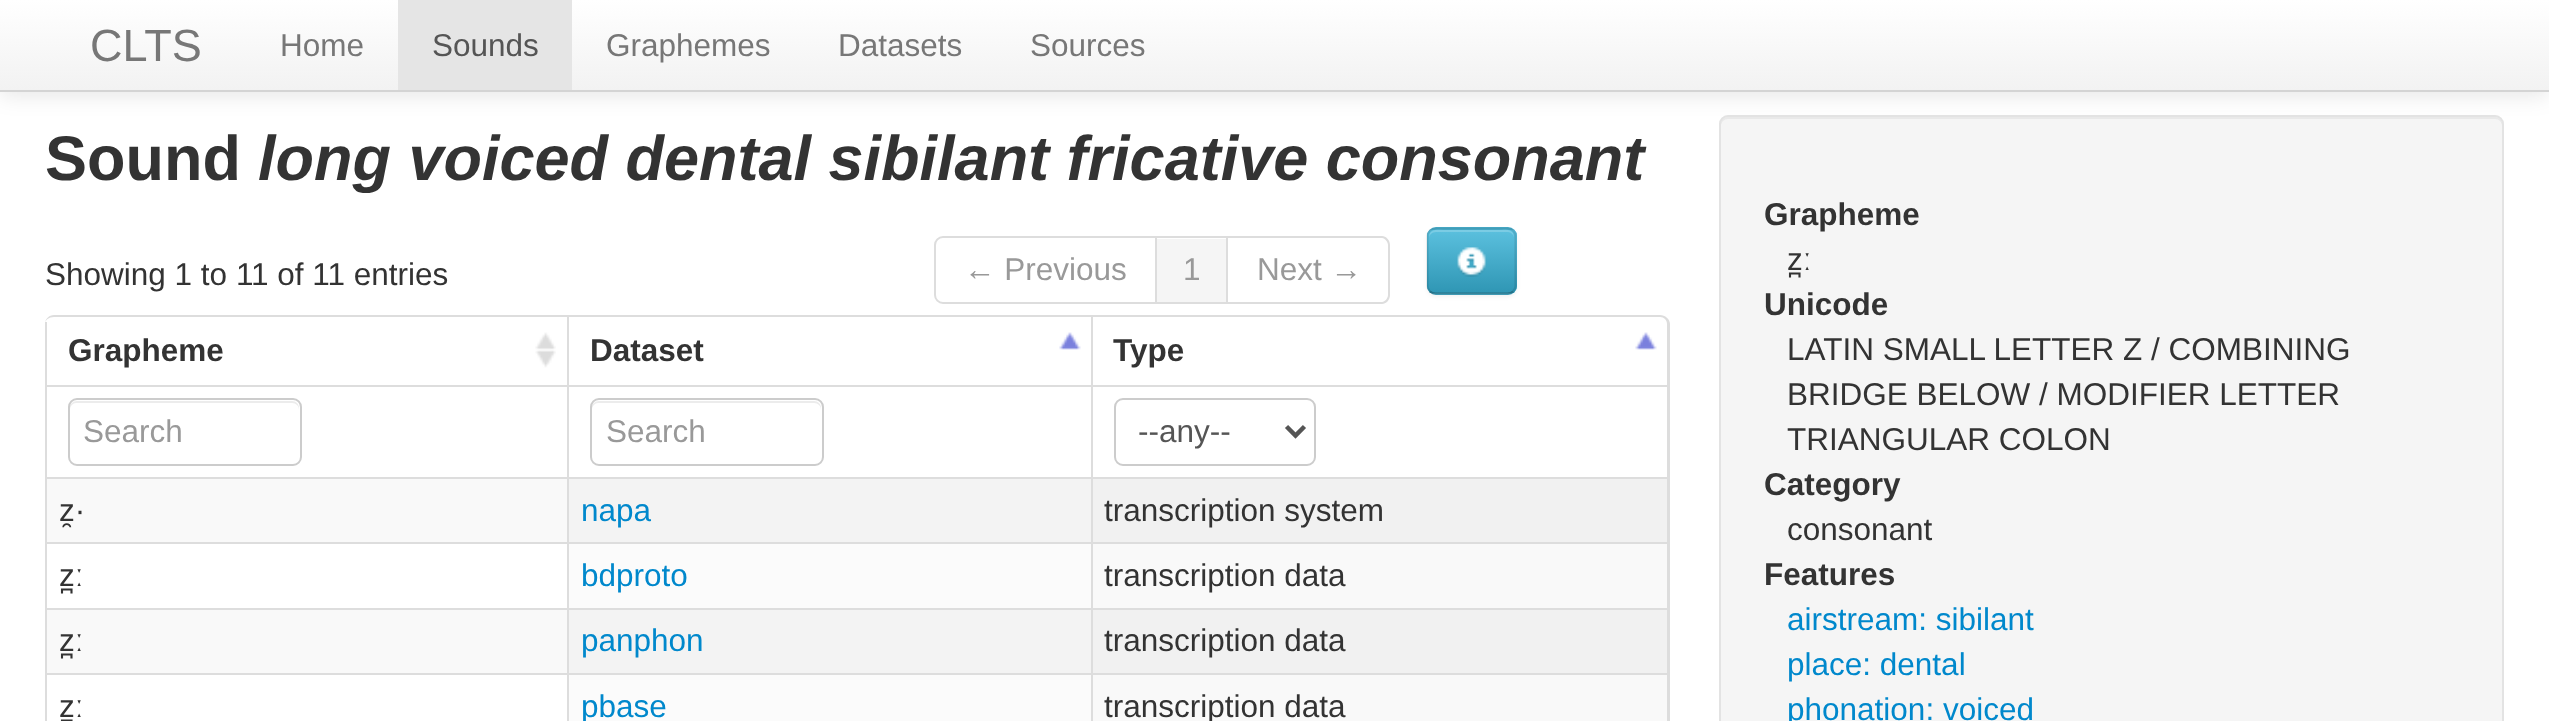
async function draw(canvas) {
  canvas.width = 2549
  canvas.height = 721
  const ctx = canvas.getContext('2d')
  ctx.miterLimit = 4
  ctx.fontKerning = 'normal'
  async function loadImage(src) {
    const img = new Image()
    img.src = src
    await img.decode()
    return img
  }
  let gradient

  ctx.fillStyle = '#fff'
  ctx.fillRect(0, 0, 2549, 721)
  ctx.fillStyle = '#0000001a'
  ctx.filter = 'blur(11px)'
  ctx.beginPath()
  ctx.rect(0, 2, 2549, 93)
  ctx.fill()
  ctx.filter = 'none'
  gradient = ctx.createLinearGradient(1275, 0, 1275, 90)
  gradient.addColorStop(0, '#fff')
  gradient.addColorStop(1, '#f2f2f2')
  ctx.fillStyle = gradient
  ctx.fillRect(0, 0, 2549, 90)
  ctx.fillStyle = '#d4d4d4'
  ctx.fillRect(0, 90, 2549, 2)
  ctx.font = '45px Liberation Sans'
  ctx.fillStyle = '#777'
  ctx.fillText('CLTS', 90, 61)
  ctx.font = '31.5px Liberation Sans'
  ctx.fillText('Home', 280, 56)
  ctx.fillStyle = '#e5e5e5'
  ctx.fillRect(398, 0, 174, 90)
  ctx.fillStyle = '#555'
  ctx.fillText('Sounds', 432, 56)
  ctx.fillStyle = '#777'
  ctx.fillText('Graphemes', 606, 56)
  ctx.fillText('Datasets', 838, 56)
  ctx.fillText('Sources', 1030, 56)
  ctx.font = 'bold 63px Liberation Sans'
  ctx.fillStyle = '#333'
  ctx.fillText('Sound', 45, 180)
  ctx.font = 'italic bold 63px Liberation Sans'
  ctx.fillText('long voiced dental sibilant fricative consonant', 258, 180)
  ctx.font = '31.5px Liberation Sans'
  ctx.fillText('Showing 1 to 11 of 11 entries', 45, 285)
  ctx.beginPath()
  ctx.roundRect(935, 237, 221, 66, [8, 0, 0, 8])
  ctx.strokeStyle = '#ddd'
  ctx.lineWidth = 2
  ctx.stroke()
  ctx.fillStyle = '#999'
  ctx.fillText('← Previous', 964, 280)
  ctx.fillStyle = '#f5f5f5'
  ctx.fillRect(1157, 239, 69, 63)
  ctx.fillStyle = '#ddd'
  ctx.fillRect(1157, 236, 72, 2)
  ctx.fillRect(1226, 236, 2, 68)
  ctx.fillRect(1157, 302, 72, 2)
  ctx.fillStyle = '#999'
  ctx.fillText('1', 1183, 280)
  ctx.fillStyle = '#ddd'
  ctx.beginPath()
  ctx.moveTo(1228, 236)
  ctx.lineTo(1382, 236)
  ctx.bezierCurveTo(1386, 236, 1390, 240, 1390, 245)
  ctx.lineTo(1390, 295)
  ctx.bezierCurveTo(1390, 300, 1386, 304, 1382, 304)
  ctx.lineTo(1228, 304)
  ctx.closePath()
  ctx.moveTo(1228, 238)
  ctx.lineTo(1382, 238)
  ctx.bezierCurveTo(1385, 238, 1388, 242, 1388, 245)
  ctx.lineTo(1388, 295)
  ctx.bezierCurveTo(1388, 298, 1385, 302, 1382, 302)
  ctx.lineTo(1228, 302)
  ctx.closePath()
  ctx.fill('evenodd')
  ctx.fillStyle = '#999'
  ctx.fillText('Next →', 1257, 280)
  ctx.fillStyle = '#0000000d'
  ctx.filter = 'blur(2px)'
  ctx.beginPath()
  ctx.roundRect(1427, 230, 90, 67, 9)
  ctx.fill()
  ctx.filter = 'none'
  ctx.fillStyle = '#49afcd'
  ctx.beginPath()
  ctx.roundRect(1427, 227, 90, 68, 9)
  ctx.fill()
  ctx.save()
  ctx.beginPath()
  ctx.roundRect(1427, 227, 90, 68, 9)
  ctx.clip()
  gradient = ctx.createLinearGradient(1472, 230, 1472, 293)
  gradient.addColorStop(0, '#5bc0de')
  gradient.addColorStop(1, '#2f96b4')
  ctx.fillStyle = gradient
  ctx.fillRect(1427, 230, 90, 63)
  ctx.restore()
  ctx.fillStyle = '#7bcce4'
  ctx.beginPath()
  ctx.moveTo(1436, 232)
  ctx.lineTo(1508, 232)
  ctx.bezierCurveTo(1511, 232, 1514, 235, 1514, 238)
  ctx.bezierCurveTo(1514, 227, 1503, 230, 1495, 230)
  ctx.lineTo(1448, 230)
  ctx.bezierCurveTo(1440, 230, 1429, 227, 1429, 238)
  ctx.bezierCurveTo(1429, 235, 1432, 232, 1436, 232)
  ctx.closePath()
  ctx.fill()
  ctx.beginPath()
  ctx.moveTo(1513, 291.5)
  ctx.bezierCurveTo(1511.5, 293, 1509.5, 293.5, 1507.5, 293.5)
  ctx.lineTo(1435.5, 293.5)
  ctx.bezierCurveTo(1433.5, 293.5, 1431.5, 293, 1430, 291.5)
  ctx.strokeStyle = '#00000040'
  ctx.lineWidth = 2.2
  ctx.stroke()
  ctx.beginPath()
  ctx.moveTo(1430, 291.5)
  ctx.bezierCurveTo(1428.5, 290, 1427.5, 288, 1427.5, 286)
  ctx.lineTo(1427.5, 236)
  ctx.bezierCurveTo(1427.5, 234, 1428.5, 232, 1430, 230.5)
  ctx.bezierCurveTo(1431.5, 229, 1433.5, 228.5, 1435.5, 228.5)
  ctx.lineTo(1507.5, 228.5)
  ctx.bezierCurveTo(1509.5, 228.5, 1511.5, 229, 1513, 230.5)
  ctx.bezierCurveTo(1514.5, 232, 1515.5, 234, 1515.5, 236)
  ctx.lineTo(1515.5, 286)
  ctx.bezierCurveTo(1515.5, 288, 1514.5, 290, 1513, 291.5)
  ctx.strokeStyle = '#0000001a'
  ctx.stroke()
  ctx.drawImage(await loadImage('image0.png'), 1457, 247, 29, 30)
  ctx.fillStyle = '#ddd'
  ctx.beginPath()
  ctx.moveTo(54, 315)
  ctx.lineTo(1660, 315)
  ctx.bezierCurveTo(1665, 315, 1670, 319, 1670, 324)
  ctx.lineTo(1670, 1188)
  ctx.bezierCurveTo(1670, 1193, 1665, 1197, 1660, 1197)
  ctx.lineTo(54, 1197)
  ctx.bezierCurveTo(49, 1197, 45, 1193, 45, 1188)
  ctx.lineTo(45, 324)
  ctx.bezierCurveTo(45, 319, 49, 315, 54, 315)
  ctx.closePath()
  ctx.moveTo(54, 317)
  ctx.lineTo(1660, 317)
  ctx.bezierCurveTo(1664, 317, 1667, 320, 1667, 324)
  ctx.lineTo(1667, 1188)
  ctx.bezierCurveTo(1667, 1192, 1664, 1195, 1660, 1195)
  ctx.lineTo(54, 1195)
  ctx.bezierCurveTo(49, 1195, 45, 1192, 45, 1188)
  ctx.lineTo(45, 324)
  ctx.bezierCurveTo(45, 320, 49, 317, 54, 317)
  ctx.closePath()
  ctx.fill('evenodd')
  ctx.drawImage(await loadImage('image1.png'), 535, 332, 21, 36)
  ctx.fillRect(45, 322, 2, 63)
  ctx.font = 'bold 31.5px Liberation Sans'
  ctx.fillStyle = '#333'
  ctx.fillText('Grapheme', 68, 361)
  ctx.drawImage(await loadImage('image2.png'), 1059, 332, 22, 18)
  ctx.fillStyle = '#ddd'
  ctx.fillRect(567, 317, 2, 68)
  ctx.fillStyle = '#333'
  ctx.fillText('Dataset', 590, 361)
  ctx.drawImage(await loadImage('image3.png'), 1635, 332, 22, 18)
  ctx.fillStyle = '#ddd'
  ctx.fillRect(1091, 317, 2, 68)
  ctx.fillStyle = '#333'
  ctx.fillText('Type', 1113, 361)
  ctx.fillStyle = '#ddd'
  ctx.fillRect(45, 385, 1622, 2)
  ctx.fillRect(45, 385, 2, 92)
  ctx.fillStyle = '#ececec'
  ctx.beginPath()
  ctx.moveTo(76, 403)
  ctx.lineTo(292, 403)
  ctx.bezierCurveTo(296, 403, 299, 406, 299, 410)
  ctx.lineTo(299, 408)
  ctx.bezierCurveTo(299, 404, 296, 401, 292, 401)
  ctx.lineTo(77, 401)
  ctx.bezierCurveTo(73, 401, 70, 404, 70, 408)
  ctx.lineTo(70, 410)
  ctx.bezierCurveTo(70, 406, 73, 403, 76, 403)
  ctx.closePath()
  ctx.fill()
  ctx.beginPath()
  ctx.roundRect(69, 399, 232, 66, 8)
  ctx.strokeStyle = '#ccc'
  ctx.lineWidth = 2
  ctx.stroke()
  ctx.font = '31.5px Liberation Sans'
  ctx.fillStyle = '#999'
  ctx.fillText('Search', 83, 442)
  ctx.fillStyle = '#ddd'
  ctx.fillRect(567, 385, 2, 92)
  ctx.fillStyle = '#ececec'
  ctx.beginPath()
  ctx.moveTo(598, 403)
  ctx.lineTo(814, 403)
  ctx.bezierCurveTo(818, 403, 821, 406, 821, 410)
  ctx.lineTo(821, 408)
  ctx.bezierCurveTo(821, 404, 818, 401, 814, 401)
  ctx.lineTo(599, 401)
  ctx.bezierCurveTo(595, 401, 592, 404, 592, 408)
  ctx.lineTo(592, 410)
  ctx.bezierCurveTo(592, 406, 595, 403, 598, 403)
  ctx.closePath()
  ctx.fill()
  ctx.beginPath()
  ctx.roundRect(591, 399, 232, 66, 8)
  ctx.stroke()
  ctx.fillStyle = '#999'
  ctx.fillText('Search', 606, 442)
  ctx.fillStyle = '#ddd'
  ctx.fillRect(1091, 385, 2, 92)
  ctx.beginPath()
  ctx.roundRect(1115, 399, 200, 66, 8)
  ctx.stroke()
  ctx.beginPath()
  ctx.moveTo(1286.5, 426.5)
  ctx.lineTo(1295.5, 435.5)
  ctx.lineTo(1304.5, 426.5)
  ctx.strokeStyle = '#555'
  ctx.lineWidth = 4.5
  ctx.stroke()
  ctx.fillStyle = '#555'
  ctx.fillText('--any--', 1138, 442)
  ctx.fillStyle = '#f9f9f9'
  ctx.fillRect(47, 479, 520, 63)
  ctx.fillStyle = '#ddd'
  ctx.fillRect(45, 477, 1622, 2)
  ctx.fillRect(45, 477, 2, 65)
  ctx.fillStyle = '#333'
  ctx.fillText('z̯·', 59, 521)
  ctx.fillStyle = '#f3f3f3'
  ctx.fillRect(569, 479, 522, 63)
  ctx.fillStyle = '#ddd'
  ctx.fillRect(567, 477, 2, 65)
  ctx.fillStyle = '#08c'
  ctx.fillText('napa', 581, 521)
  ctx.fillStyle = '#f1f1f1'
  ctx.fillRect(1093, 479, 574, 63)
  ctx.fillStyle = '#ddd'
  ctx.fillRect(1091, 477, 2, 65)
  ctx.fillStyle = '#333'
  ctx.fillText('transcription system', 1104, 521)
  ctx.fillStyle = '#ddd'
  ctx.fillRect(45, 542, 1622, 2)
  ctx.fillRect(45, 542, 2, 66)
  ctx.fillStyle = '#333'
  ctx.fillText('z̪ː', 59, 586)
  ctx.fillStyle = '#fbfbfb'
  ctx.fillRect(569, 544, 522, 64)
  ctx.fillStyle = '#ddd'
  ctx.fillRect(567, 542, 2, 66)
  ctx.fillStyle = '#08c'
  ctx.fillText('bdproto', 581, 586)
  ctx.fillStyle = '#f9f9f9'
  ctx.fillRect(1093, 544, 574, 64)
  ctx.fillStyle = '#ddd'
  ctx.fillRect(1091, 542, 2, 66)
  ctx.fillStyle = '#333'
  ctx.fillText('transcription data', 1104, 586)
  ctx.fillStyle = '#f9f9f9'
  ctx.fillRect(47, 610, 520, 63)
  ctx.fillStyle = '#ddd'
  ctx.fillRect(45, 608, 1622, 2)
  ctx.fillRect(45, 608, 2, 65)
  ctx.fillStyle = '#333'
  ctx.fillText('z̪ː', 59, 651)
  ctx.fillStyle = '#f3f3f3'
  ctx.fillRect(569, 610, 522, 63)
  ctx.fillStyle = '#ddd'
  ctx.fillRect(567, 608, 2, 65)
  ctx.fillStyle = '#08c'
  ctx.fillText('panphon', 581, 651)
  ctx.fillStyle = '#f1f1f1'
  ctx.fillRect(1093, 610, 574, 63)
  ctx.fillStyle = '#ddd'
  ctx.fillRect(1091, 608, 2, 65)
  ctx.fillStyle = '#333'
  ctx.fillText('transcription data', 1104, 651)
  ctx.fillStyle = '#ddd'
  ctx.fillRect(45, 673, 1622, 2)
  ctx.fillRect(45, 673, 2, 48)
  ctx.fillStyle = '#333'
  ctx.fillText('z̪ː', 59, 717)
  ctx.fillStyle = '#fbfbfb'
  ctx.fillRect(569, 675, 522, 46)
  ctx.fillStyle = '#ddd'
  ctx.fillRect(567, 673, 2, 48)
  ctx.fillStyle = '#08c'
  ctx.fillText('pbase', 581, 717)
  ctx.fillStyle = '#f9f9f9'
  ctx.fillRect(1093, 675, 574, 46)
  ctx.fillStyle = '#ddd'
  ctx.fillRect(1091, 673, 2, 48)
  ctx.fillStyle = '#333'
  ctx.fillText('transcription data', 1104, 717)
  ctx.fillStyle = '#f5f5f5'
  ctx.beginPath()
  ctx.roundRect(1719, 115, 785, 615, 9)
  ctx.fill()
  ctx.fillStyle = '#e9e9e9'
  ctx.beginPath()
  ctx.moveTo(1728, 119)
  ctx.lineTo(2495, 119)
  ctx.bezierCurveTo(2499, 119, 2502, 122, 2502, 126)
  ctx.lineTo(2502, 124)
  ctx.bezierCurveTo(2502, 120, 2499, 117, 2495, 117)
  ctx.lineTo(1728, 117)
  ctx.bezierCurveTo(1724, 117, 1721, 120, 1721, 124)
  ctx.lineTo(1721, 126)
  ctx.bezierCurveTo(1721, 122, 1724, 119, 1728, 119)
  ctx.closePath()
  ctx.fill()
  ctx.beginPath()
  ctx.roundRect(1720, 116, 783, 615, 8)
  ctx.strokeStyle = '#e3e3e3'
  ctx.lineWidth = 2
  ctx.stroke()
  ctx.font = 'bold 31.5px Liberation Sans'
  ctx.fillStyle = '#333'
  ctx.fillText('Grapheme', 1764, 225)
  ctx.font = '31.5px Liberation Sans'
  ctx.fillText('z̪ː', 1787, 270)
  ctx.font = 'bold 31.5px Liberation Sans'
  ctx.fillText('Unicode', 1764, 315)
  ctx.font = '31.5px Liberation Sans'
  ctx.fillText('LATIN SMALL LETTER Z / COMBINING', 1787, 360)
  ctx.fillText('BRIDGE BELOW / MODIFIER LETTER', 1787, 405)
  ctx.fillText('TRIANGULAR COLON', 1787, 450)
  ctx.font = 'bold 31.5px Liberation Sans'
  ctx.fillText('Category', 1764, 495)
  ctx.font = '31.5px Liberation Sans'
  ctx.fillText('consonant', 1787, 540)
  ctx.font = 'bold 31.5px Liberation Sans'
  ctx.fillText('Features', 1764, 585)
  ctx.font = '31.5px Liberation Sans'
  ctx.fillStyle = '#08c'
  ctx.fillText('airstream: sibilant', 1787, 630)
  ctx.fillText('place: dental', 1787, 675)
  ctx.fillText('phonation: voiced', 1787, 720)
}

draw(document.querySelector('canvas'))
